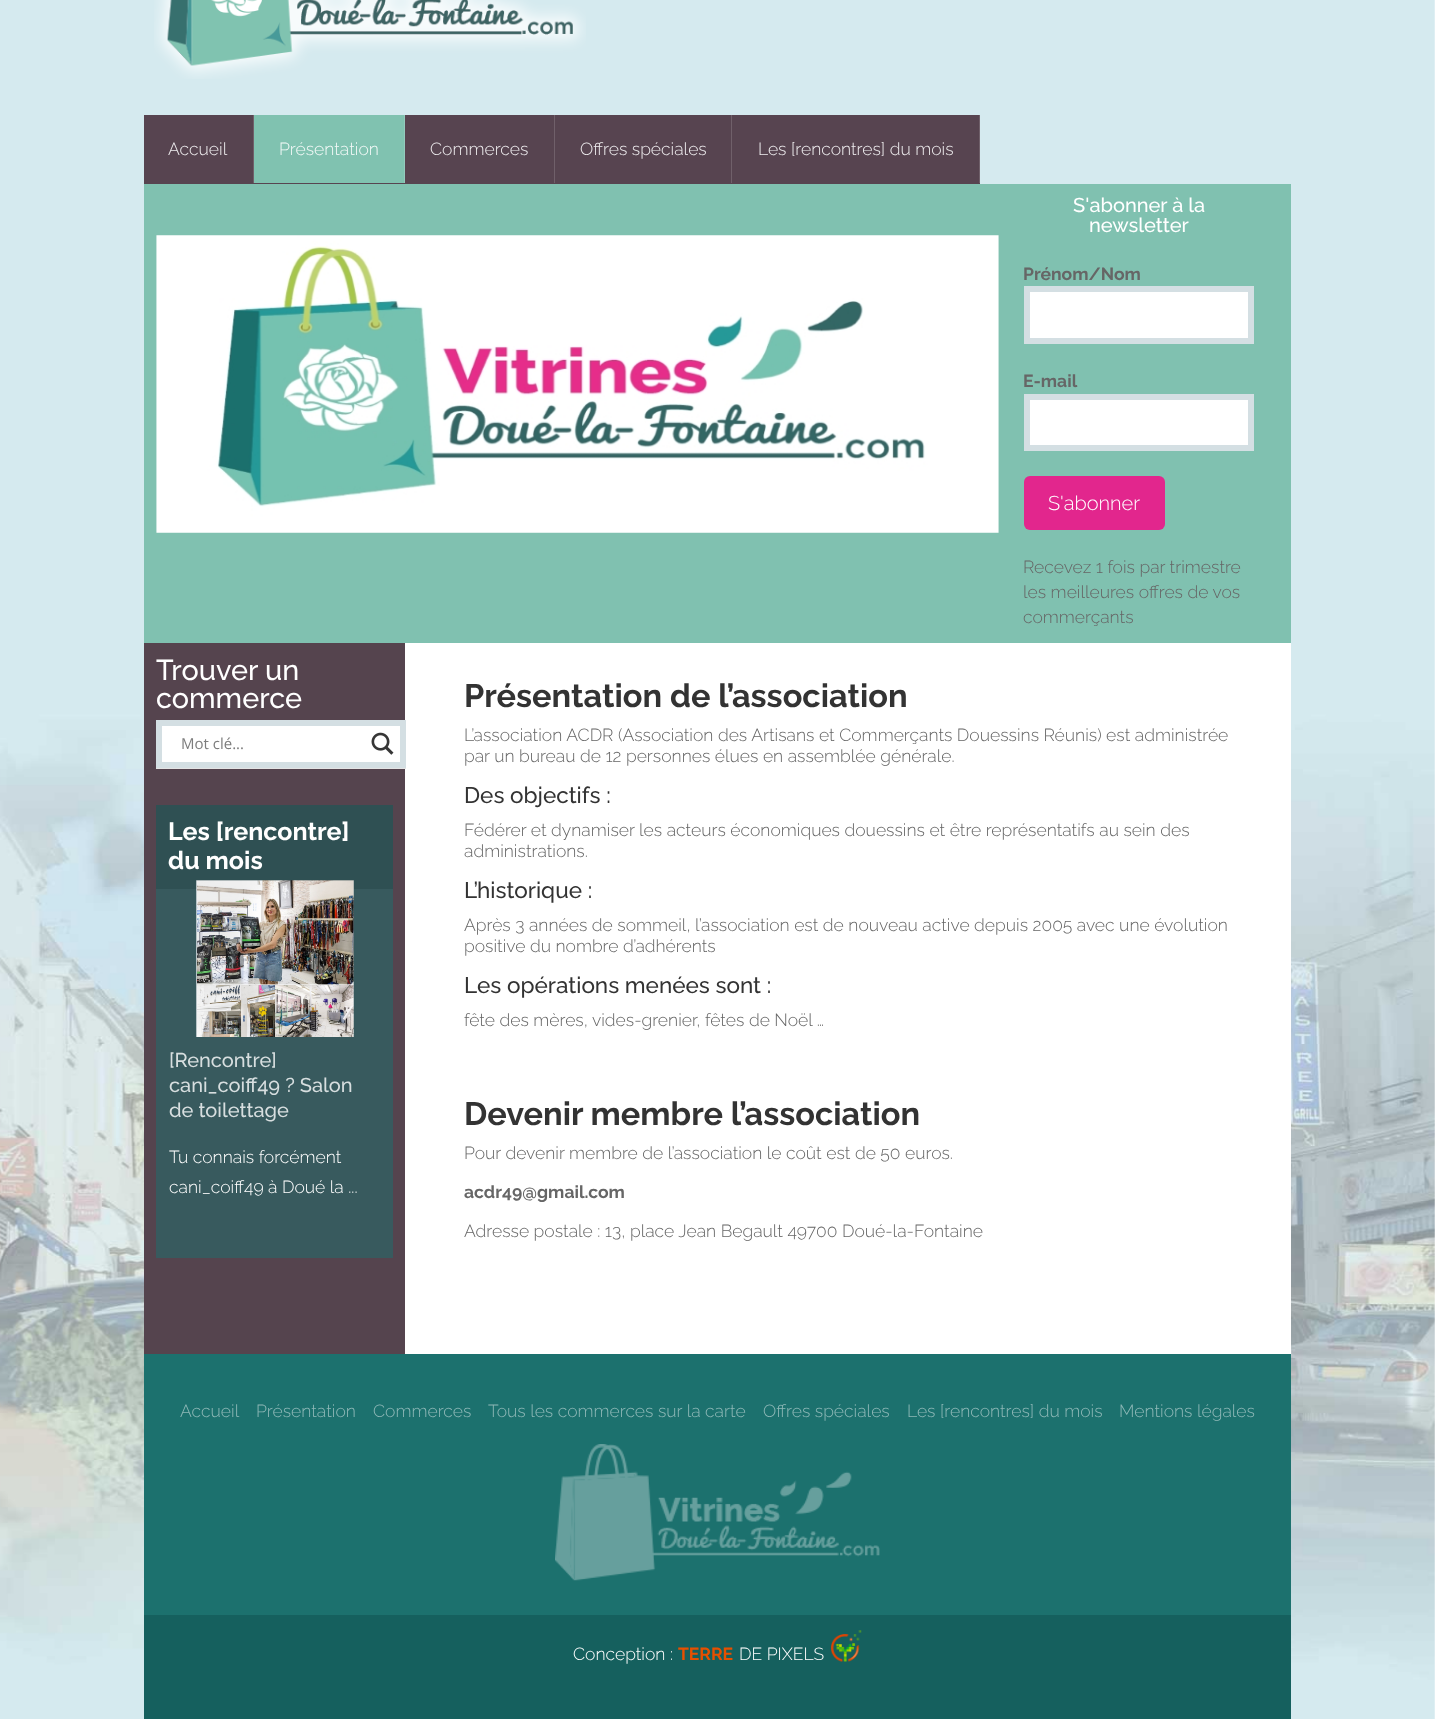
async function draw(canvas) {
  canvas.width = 1435
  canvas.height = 1719
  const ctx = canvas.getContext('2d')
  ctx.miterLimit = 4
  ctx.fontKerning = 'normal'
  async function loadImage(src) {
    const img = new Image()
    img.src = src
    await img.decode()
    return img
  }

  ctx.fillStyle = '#fff'
  ctx.fillRect(0, 0, 1435, 1719)
  ctx.drawImage(await loadImage('image0.png'), 0, 0, 1435, 1719)
  ctx.drawImage(await loadImage('image1.png'), 154, 0, 432, 79)
  ctx.fillStyle = '#574450'
  ctx.fillRect(144, 115, 836, 69)
  ctx.fillStyle = '#70606a'
  ctx.fillRect(253, 115, 1, 68)
  ctx.font = '300 17.5px Raleway'
  ctx.fillStyle = '#eeecee'
  ctx.fillText('Accueil', 168, 155)
  ctx.save()
  ctx.beginPath()
  ctx.rect(254, 115, 151, 69)
  ctx.clip()
  ctx.fillStyle = '#80c2b0'
  ctx.beginPath()
  ctx.moveTo(254, 98)
  ctx.lineTo(329, 46)
  ctx.lineTo(405, 98)
  ctx.lineTo(405, 183)
  ctx.lineTo(254, 183)
  ctx.closePath()
  ctx.fill()
  ctx.restore()
  ctx.fillStyle = '#93cbbc'
  ctx.fillRect(404, 115, 1, 68)
  ctx.fillStyle = '#f2f9f7'
  ctx.fillText('Présentation', 279, 155)
  ctx.fillStyle = '#70606a'
  ctx.fillRect(554, 115, 1, 68)
  ctx.fillStyle = '#eeecee'
  ctx.fillText('Commerces', 430, 155)
  ctx.fillStyle = '#70606a'
  ctx.fillRect(731, 115, 1, 68)
  ctx.fillStyle = '#eeecee'
  ctx.fillText('Offres spéciales', 580, 155)
  ctx.fillStyle = '#70606a'
  ctx.fillRect(979, 115, 1, 68)
  ctx.fillStyle = '#eeecee'
  ctx.fillText('Les [rencontres] du mois', 758, 155)
  ctx.fillStyle = '#80c1b0'
  ctx.fillRect(144, 184, 1147, 459)
  ctx.drawImage(await loadImage('image2.png'), 156, 235, 843, 298)
  ctx.font = '500 20px Raleway'
  ctx.fillStyle = '#fff'
  ctx.fillText('S\'abonner à la', 1073, 212)
  ctx.fillText('newsletter', 1089, 232)
  ctx.font = 'bold 17.5px Raleway'
  ctx.fillStyle = '#666'
  ctx.fillText('Prénom/Nom', 1023, 280)
  ctx.fillStyle = '#fff'
  ctx.beginPath()
  ctx.rect(1027, 289, 224, 52)
  ctx.fill()
  ctx.strokeStyle = '#d4dfe3'
  ctx.lineWidth = 6
  ctx.stroke()
  ctx.fillStyle = '#666'
  ctx.fillText('E-mail', 1023, 387)
  ctx.fillStyle = '#fff'
  ctx.beginPath()
  ctx.rect(1027, 397, 224, 51)
  ctx.fill()
  ctx.stroke()
  ctx.fillStyle = '#e2268d'
  ctx.beginPath()
  ctx.roundRect(1024, 476, 141, 54, 6)
  ctx.fill()
  ctx.font = '300 20px Raleway'
  ctx.fillStyle = '#fff'
  ctx.fillText('S\'abonner', 1048, 510)
  ctx.font = '300 17.5px Raleway'
  ctx.fillStyle = '#666'
  ctx.fillText('Recevez 1 fois par trimestre', 1023, 573)
  ctx.fillText('les meilleures offres de vos', 1023, 598)
  ctx.fillText('commerçants', 1023, 623)
  ctx.fillStyle = '#fff'
  ctx.fillRect(405, 643, 886, 711)
  ctx.fillStyle = '#55444e'
  ctx.fillRect(144, 643, 261, 711)
  ctx.font = '500 28.75px Raleway'
  ctx.fillStyle = '#fff'
  ctx.fillText('Trouver un', 156, 680)
  ctx.fillText('commerce', 156, 708)
  ctx.fillStyle = '#e4e4e4'
  ctx.beginPath()
  ctx.moveTo(156, 721)
  ctx.lineTo(156, 769)
  ctx.lineTo(406, 769)
  ctx.lineTo(406, 768)
  ctx.lineTo(156, 768)
  ctx.closePath()
  ctx.fill()
  ctx.fillStyle = '#fff'
  ctx.beginPath()
  ctx.rect(159, 723, 244, 42)
  ctx.fill()
  ctx.stroke()
  ctx.font = '15px Open Sans'
  ctx.fillStyle = '#7d7d7d'
  ctx.fillText('Mot clé...', 181, 749)
  ctx.drawImage(await loadImage('image3.png'), 371, 732, 23, 23)
  ctx.fillStyle = '#385a5e'
  ctx.fillRect(156, 889, 237, 369)
  ctx.fillStyle = '#2f5053'
  ctx.fillRect(156, 805, 237, 84)
  ctx.font = 'bold 25px Raleway'
  ctx.fillStyle = '#fff'
  ctx.fillText('Les [rencontre]', 168, 840)
  ctx.fillText('du mois', 168, 869)
  ctx.drawImage(await loadImage('image4.png'), 196, 880, 158, 157)
  ctx.font = '500 20px Raleway'
  ctx.fillStyle = '#d7dedf'
  ctx.fillText('[Rencontre]', 169, 1067)
  ctx.fillText('cani_coiff49 ? Salon', 169, 1092)
  ctx.fillText('de toilettage', 169, 1117)
  ctx.font = '300 17.5px Raleway'
  ctx.fillStyle = '#fff'
  ctx.fillText('Tu connais forcément', 169, 1163)
  ctx.fillText('cani_coiff49 à Doué la ...', 169, 1193)
  ctx.font = 'bold 32.5px Raleway'
  ctx.fillStyle = '#333'
  ctx.fillText('Présentation de l’association', 464, 707)
  ctx.font = '300 17.5px Raleway'
  ctx.fillStyle = '#666'
  ctx.fillText('L’association ACDR (Association des Artisans et Commerçants Douessins Réunis) est administrée', 464, 741)
  ctx.fillText('par un bureau de 12 personnes élues en assemblée générale.', 464, 762)
  ctx.font = '500 22.5px Raleway'
  ctx.fillStyle = '#333'
  ctx.fillText('Des objectifs :', 464, 803)
  ctx.font = '300 17.5px Raleway'
  ctx.fillStyle = '#666'
  ctx.fillText('Fédérer et dynamiser les acteurs économiques douessins et être représentatifs au sein des', 464, 836)
  ctx.fillText('administrations.', 464, 857)
  ctx.font = '500 22.5px Raleway'
  ctx.fillStyle = '#333'
  ctx.fillText('L’historique :', 464, 898)
  ctx.font = '300 17.5px Raleway'
  ctx.fillStyle = '#666'
  ctx.fillText('Après 3 années de sommeil, l’association est de nouveau active depuis 2005 avec une évolution', 464, 931)
  ctx.fillText('positive du nombre d’adhérents', 464, 952)
  ctx.font = '500 22.5px Raleway'
  ctx.fillStyle = '#333'
  ctx.fillText('Les opérations menées sont :', 464, 993)
  ctx.font = '300 17.5px Raleway'
  ctx.fillStyle = '#666'
  ctx.fillText('fête des mères, vides-grenier, fêtes de Noël …', 464, 1026)
  ctx.font = 'bold 32.5px Raleway'
  ctx.fillStyle = '#333'
  ctx.fillText('Devenir membre l’association', 464, 1125)
  ctx.font = '300 17.5px Raleway'
  ctx.fillStyle = '#666'
  ctx.fillText('Pour devenir membre de l’association le coût est de 50 euros.', 464, 1159)
  ctx.font = 'bold 17.5px Raleway'
  ctx.fillText('acdr49@gmail.com', 464, 1198)
  ctx.font = '300 17.5px Raleway'
  ctx.fillText('Adresse postale : 13, place Jean Begault 49700 Doué-la-Fontaine', 464, 1237)
  ctx.fillStyle = '#1c716e'
  ctx.fillRect(144, 1354, 1147, 261)
  ctx.fillStyle = '#8eb8b7'
  ctx.fillText('Accueil', 180, 1417)
  ctx.fillText('Présentation', 256, 1417)
  ctx.fillText('Commerces', 373, 1417)
  ctx.fillText('Tous les commerces sur la carte', 488, 1417)
  ctx.fillText('Offres spéciales', 763, 1417)
  ctx.fillText('Les [rencontres] du mois', 907, 1417)
  ctx.fillText('Mentions légales', 1119, 1417)
  ctx.drawImage(await loadImage('image5.png'), 555, 1444, 325, 137)
  ctx.fillStyle = '#15605e'
  ctx.fillRect(144, 1615, 1147, 104)
  ctx.fillStyle = '#fff'
  ctx.fillText('Conception :', 573, 1660)
  ctx.font = 'bold 17.5px Raleway'
  ctx.fillStyle = '#e75000'
  ctx.fillText('TERRE', 678, 1660)
  ctx.font = '300 17.5px Raleway'
  ctx.fillStyle = '#fff'
  ctx.fillText('DE PIXELS', 739, 1660)
  ctx.drawImage(await loadImage('image6.png'), 831, 1630, 31, 32)
}

draw(document.querySelector('canvas'))
